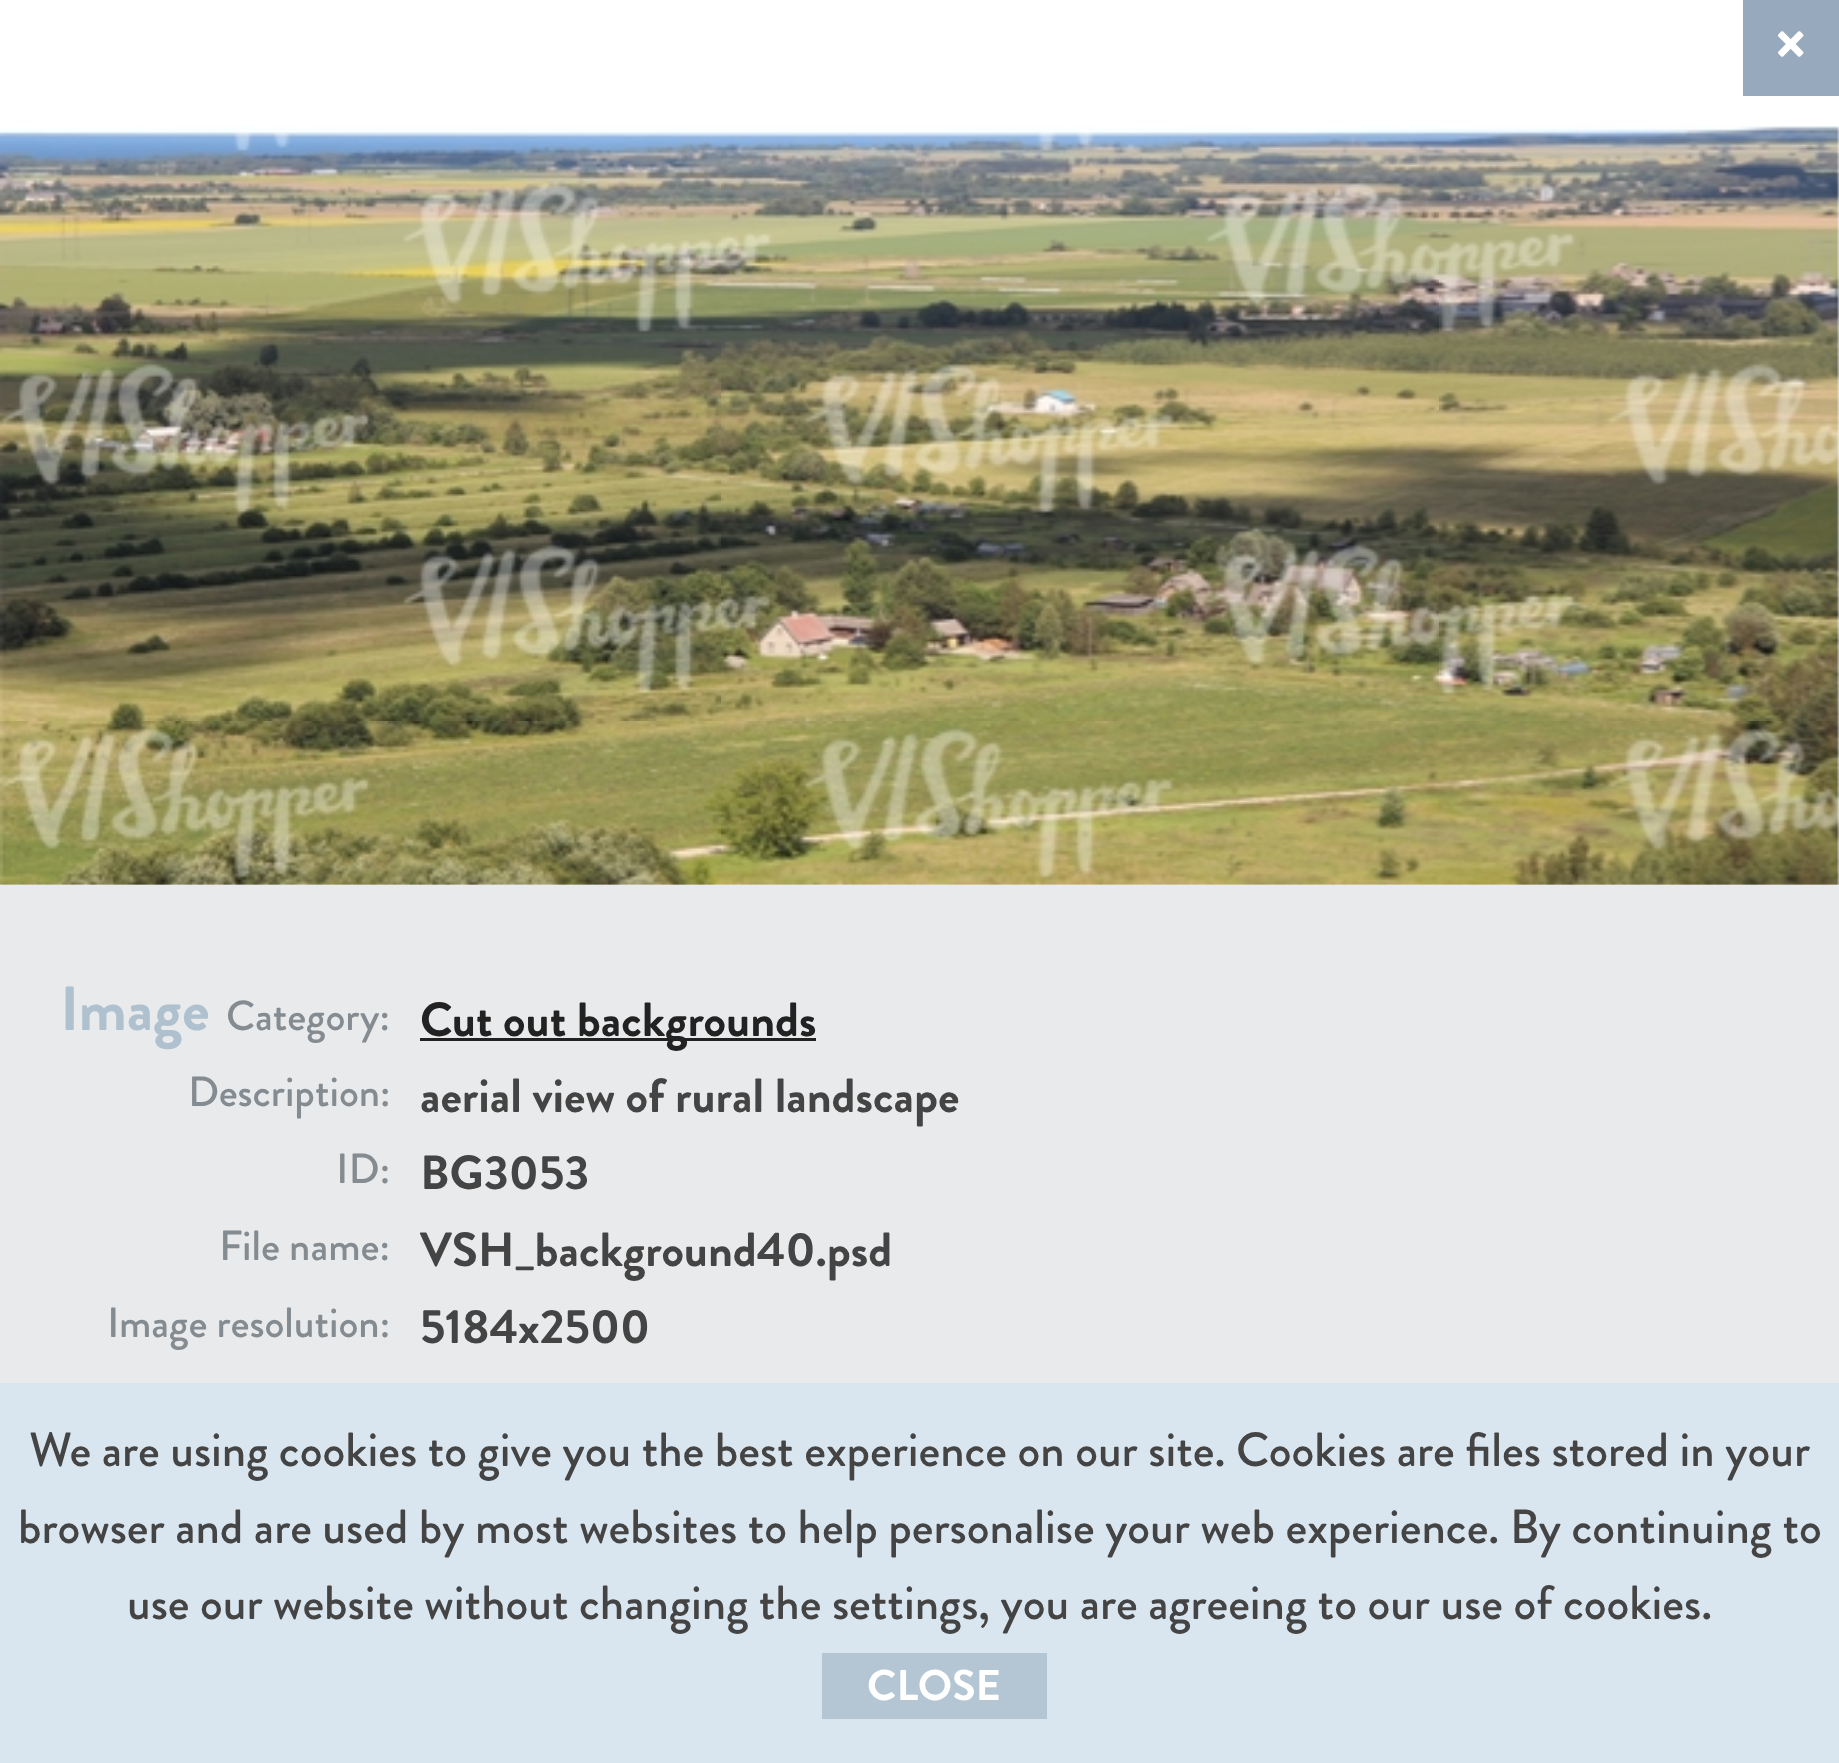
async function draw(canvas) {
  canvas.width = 1839
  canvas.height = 1763
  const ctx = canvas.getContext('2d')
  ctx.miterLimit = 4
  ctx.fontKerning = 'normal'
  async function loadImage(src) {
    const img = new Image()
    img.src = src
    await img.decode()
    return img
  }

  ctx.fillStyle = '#fff'
  ctx.fillRect(0, 0, 1839, 1763)
  ctx.fillStyle = '#97aabd'
  ctx.fillRect(1743, 0, 96, 96)
  ctx.font = 'bold 72px Brandon Grotesque'
  ctx.fillStyle = '#fff'
  ctx.fillText('×', 1774, 69)
  ctx.drawImage(await loadImage('image0.png'), 0, 125, 1839, 760)
  ctx.fillStyle = '#e8eaec'
  ctx.fillRect(0, 885, 1839, 498)
  ctx.font = 'bold 62px Brandon Grotesque'
  ctx.fillStyle = '#afc1cf'
  ctx.fillText('Image', 60, 1030)
  ctx.font = '500 42px Brandon Grotesque'
  ctx.fillStyle = '#848b91'
  ctx.fillText('Category:', 226, 1030)
  ctx.fillStyle = '#222'
  ctx.fillRect(420, 1038, 396, 3)
  ctx.font = 'bold 48px Brandon Grotesque'
  ctx.fillText('Cut out backgrounds', 420, 1036)
  ctx.font = '500 42px Brandon Grotesque'
  ctx.fillStyle = '#848b91'
  ctx.fillText('Description:', 188, 1106)
  ctx.font = 'bold 48px Brandon Grotesque'
  ctx.fillStyle = '#444'
  ctx.fillText('aerial view of rural landscape', 420, 1112)
  ctx.font = '500 42px Brandon Grotesque'
  ctx.fillStyle = '#848b91'
  ctx.fillText('ID:', 336, 1183)
  ctx.font = 'bold 48px Brandon Grotesque'
  ctx.fillStyle = '#444'
  ctx.fillText('BG3053', 420, 1189)
  ctx.font = '500 42px Brandon Grotesque'
  ctx.fillStyle = '#848b91'
  ctx.fillText('File name:', 219, 1260)
  ctx.font = 'bold 48px Brandon Grotesque'
  ctx.fillStyle = '#444'
  ctx.fillText('VSH_background40.psd', 420, 1266)
  ctx.font = '500 42px Brandon Grotesque'
  ctx.fillStyle = '#848b91'
  ctx.fillText('Image resolution:', 107, 1337)
  ctx.font = 'bold 48px Brandon Grotesque'
  ctx.fillStyle = '#444'
  ctx.fillText('5184x2500', 420, 1343)
  ctx.fillStyle = '#dae6ef'
  ctx.fillRect(0, 1383, 1839, 380)
  ctx.font = '500 48px Brandon Grotesque'
  ctx.fillStyle = '#444'
  ctx.fillText('We are using cookies to give you the best experience on our site. Cookies are files stored in your', 29, 1466)
  ctx.fillText('browser and are used by most websites to help personalise your web experience. By continuing to', 18, 1543)
  ctx.fillText('use our website without changing the settings, you are agreeing to our use of cookies.', 127, 1619)
  ctx.fillStyle = '#b4c6d4'
  ctx.fillRect(822, 1653, 225, 66)
  ctx.font = 'bold 43px Brandon Grotesque'
  ctx.fillStyle = '#fff'
  ctx.fillText('CLOSE', 867, 1700)
}

draw(document.querySelector('canvas'))
